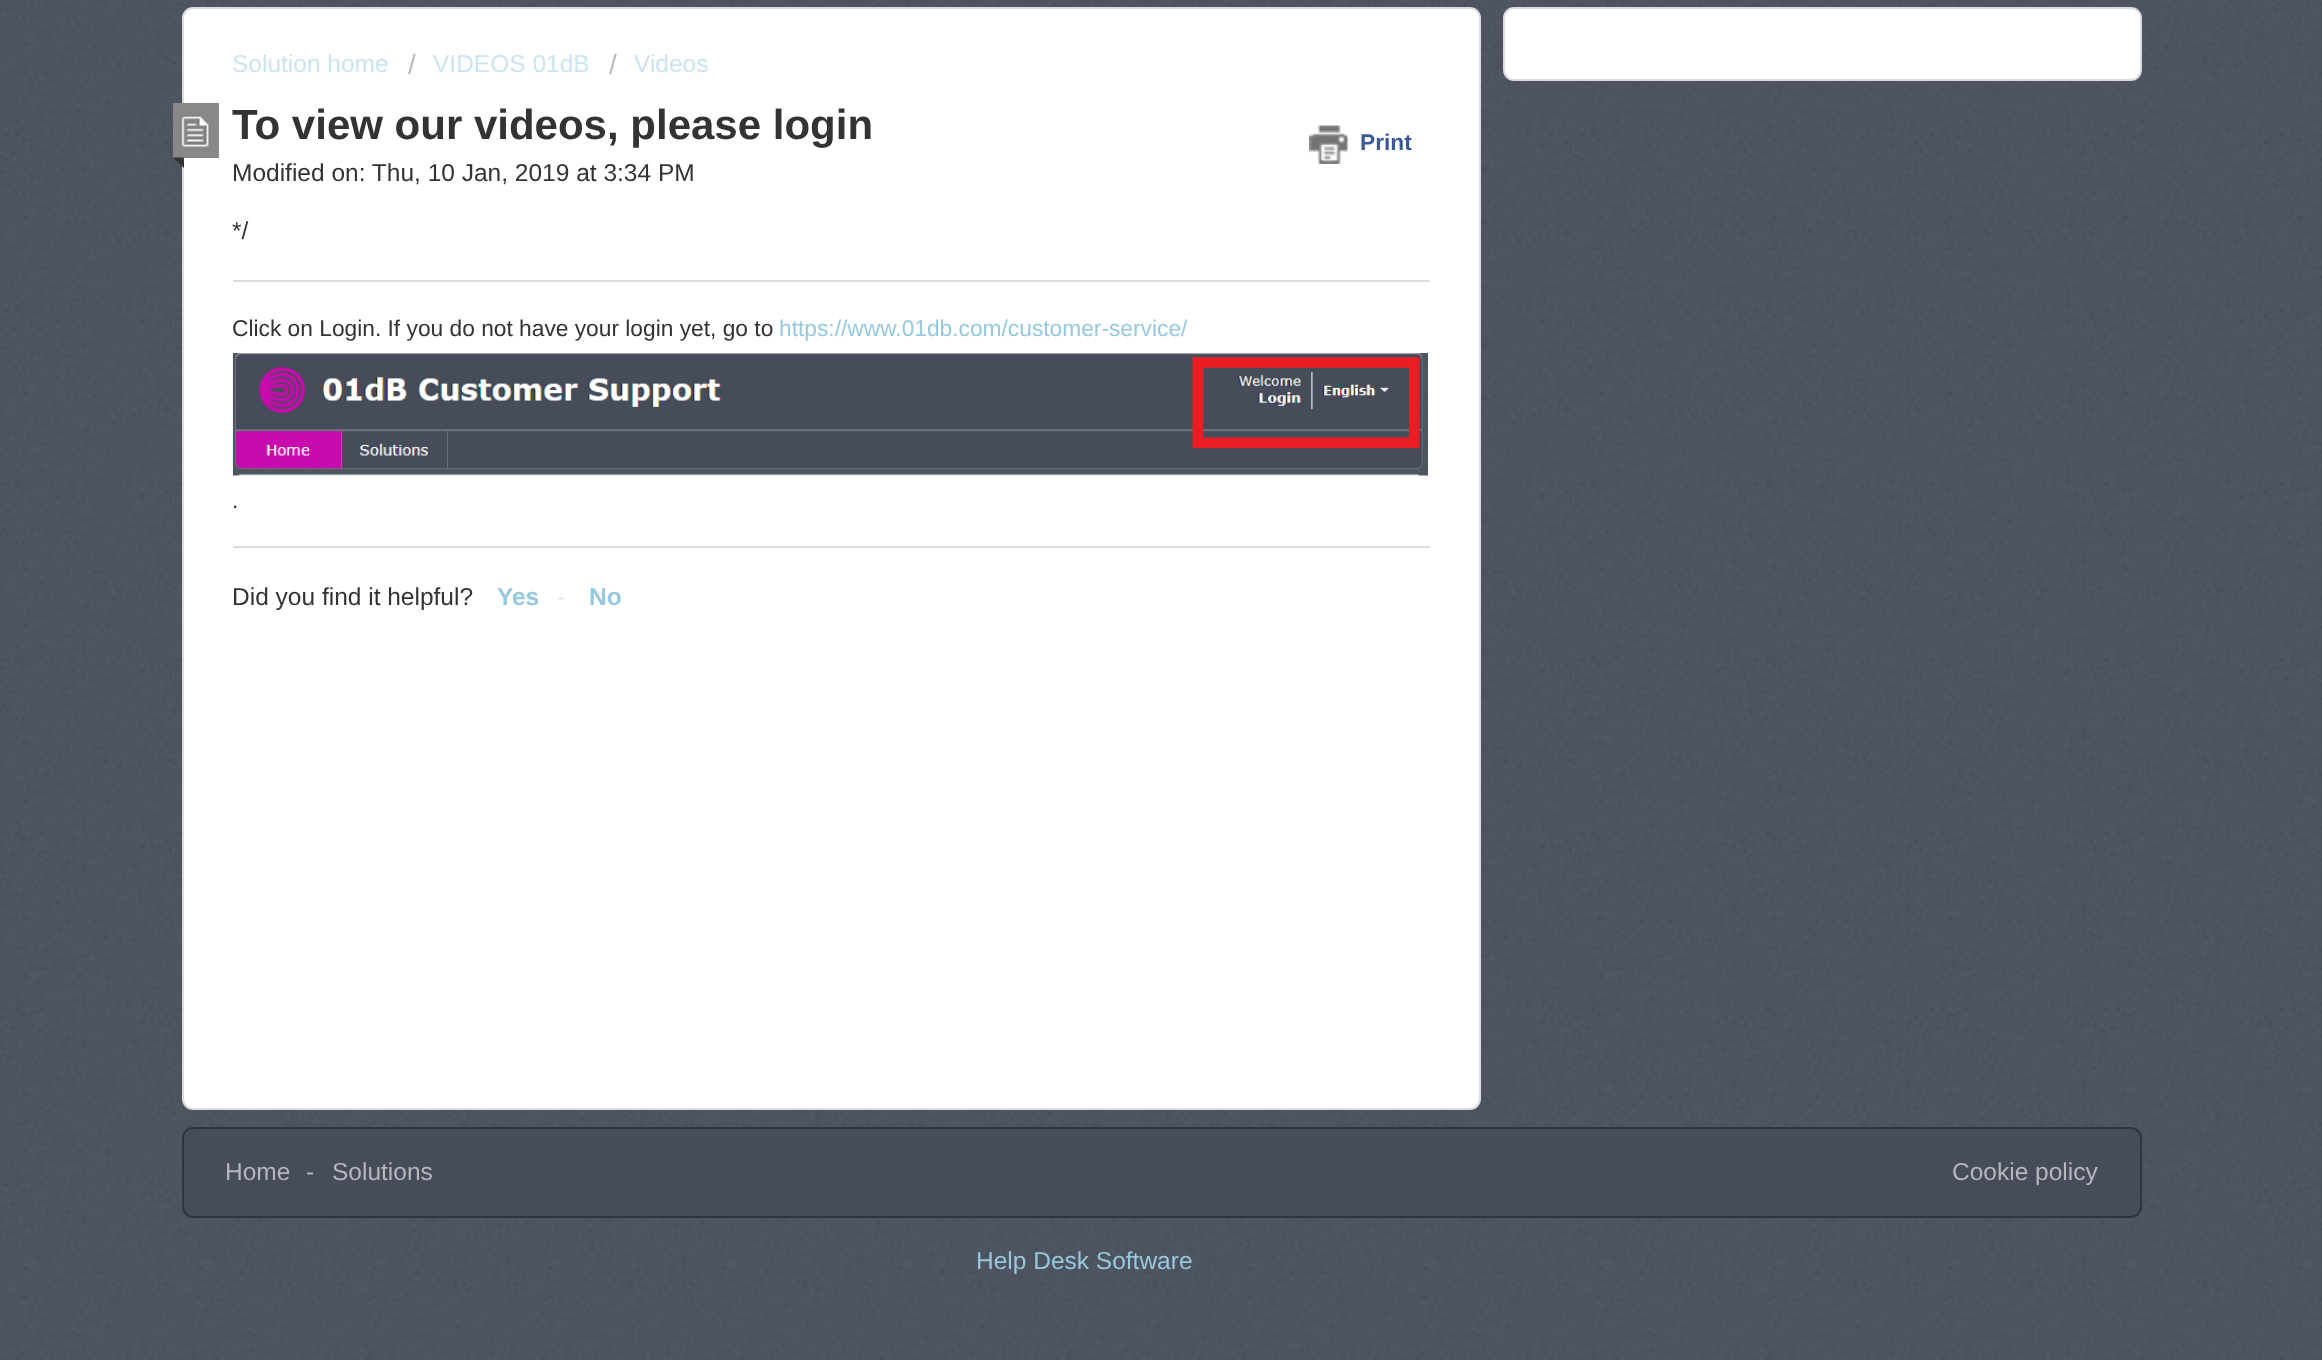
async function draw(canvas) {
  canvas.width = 2322
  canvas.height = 1360
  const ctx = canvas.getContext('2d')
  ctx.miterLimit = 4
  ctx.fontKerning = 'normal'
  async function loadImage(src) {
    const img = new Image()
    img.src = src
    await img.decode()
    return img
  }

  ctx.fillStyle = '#464c59'
  ctx.fillRect(0, 0, 2322, 1360)
  ctx.drawImage(await loadImage('image0.png'), 0, 0, 2322, 1360)
  ctx.fillStyle = '#fff'
  ctx.beginPath()
  ctx.roundRect(1504, 8, 637, 72, 10)
  ctx.fill()
  ctx.strokeStyle = '#dcdcdc'
  ctx.lineWidth = 2
  ctx.stroke()
  ctx.beginPath()
  ctx.roundRect(183, 8, 1297, 1101, 10)
  ctx.fill()
  ctx.stroke()
  ctx.font = '24.5px Liberation Sans'
  ctx.fillStyle = '#cbe4ef'
  ctx.fillText('Solution home', 232, 72)
  ctx.font = '28px Liberation Sans'
  ctx.fillStyle = '#bbb'
  ctx.fillText('/', 408, 74)
  ctx.font = '24.5px Liberation Sans'
  ctx.fillStyle = '#cbe4ef'
  ctx.fillText('VIDEOS 01dB', 433, 72)
  ctx.font = '28px Liberation Sans'
  ctx.fillStyle = '#bbb'
  ctx.fillText('/', 609, 74)
  ctx.font = '24.5px Liberation Sans'
  ctx.fillStyle = '#cbe4ef'
  ctx.fillText('Videos', 634, 72)
  ctx.fillStyle = '#888'
  ctx.fillRect(173, 103, 46, 55)
  ctx.drawImage(await loadImage('image1.png'), 180, 115, 29, 32)
  ctx.fillStyle = '#333'
  ctx.beginPath()
  ctx.moveTo(173, 157.5)
  ctx.lineTo(184, 157.5)
  ctx.lineTo(178.5, 163)
  ctx.closePath()
  ctx.fill()
  ctx.beginPath()
  ctx.moveTo(184, 157.5)
  ctx.lineTo(184, 168)
  ctx.lineTo(178.5, 163)
  ctx.closePath()
  ctx.fill()
  ctx.font = 'bold 42px Liberation Sans'
  ctx.fillText('To view our videos, please login', 232, 139)
  ctx.drawImage(await loadImage('image2.png'), 1309, 125, 39, 39)
  ctx.font = 'bold 22.75px Liberation Sans'
  ctx.fillStyle = '#3b5998'
  ctx.fillText('Print', 1360, 150)
  ctx.font = '24.5px Liberation Sans'
  ctx.fillStyle = '#333'
  ctx.fillText('Modified on: Thu, 10 Jan, 2019 at 3:34 PM', 232, 181)
  ctx.fillText('*/', 232, 239)
  ctx.fillStyle = '#dcdcdc'
  ctx.fillRect(233, 280, 1197, 2)
  ctx.font = '22.75px Liberation Sans'
  ctx.fillStyle = '#333'
  ctx.fillText('Click on Login. If you do not have your login yet, go to', 232, 336)
  ctx.fillStyle = '#96c8de'
  ctx.fillText('https://www.01db.com/customer-service/', 779, 336)
  ctx.drawImage(await loadImage('image3.png'), 232, 353, 1196, 123)
  ctx.fillStyle = '#333'
  ctx.fillText('.', 232, 508)
  ctx.fillStyle = '#dcdcdc'
  ctx.fillRect(233, 546, 1197, 2)
  ctx.font = '24.5px Liberation Sans'
  ctx.fillStyle = '#333'
  ctx.fillText('Did you find it helpful?', 232, 605)
  ctx.font = 'bold 24.5px Liberation Sans'
  ctx.fillStyle = '#96c8de'
  ctx.fillText('Yes', 497, 605)
  ctx.font = '24.5px Liberation Sans'
  ctx.fillStyle = '#e5e5e5'
  ctx.fillText('-', 557, 605)
  ctx.font = 'bold 24.5px Liberation Sans'
  ctx.fillStyle = '#96c8de'
  ctx.fillText('No', 589, 605)
  ctx.fillStyle = '#464c59'
  ctx.beginPath()
  ctx.roundRect(183, 1128, 1958, 89, 10)
  ctx.fill()
  ctx.strokeStyle = '#30343c'
  ctx.stroke()
  ctx.font = '24.5px Liberation Sans'
  ctx.fillStyle = '#b5b7bd'
  ctx.fillText('Home', 225, 1180)
  ctx.fillText('-', 306, 1180)
  ctx.fillText('Solutions', 332, 1180)
  ctx.fillText('Cookie policy', 1952, 1180)
  ctx.fillStyle = '#96c8de'
  ctx.fillText('Help Desk Software', 976, 1269)
}

draw(document.querySelector('canvas'))
